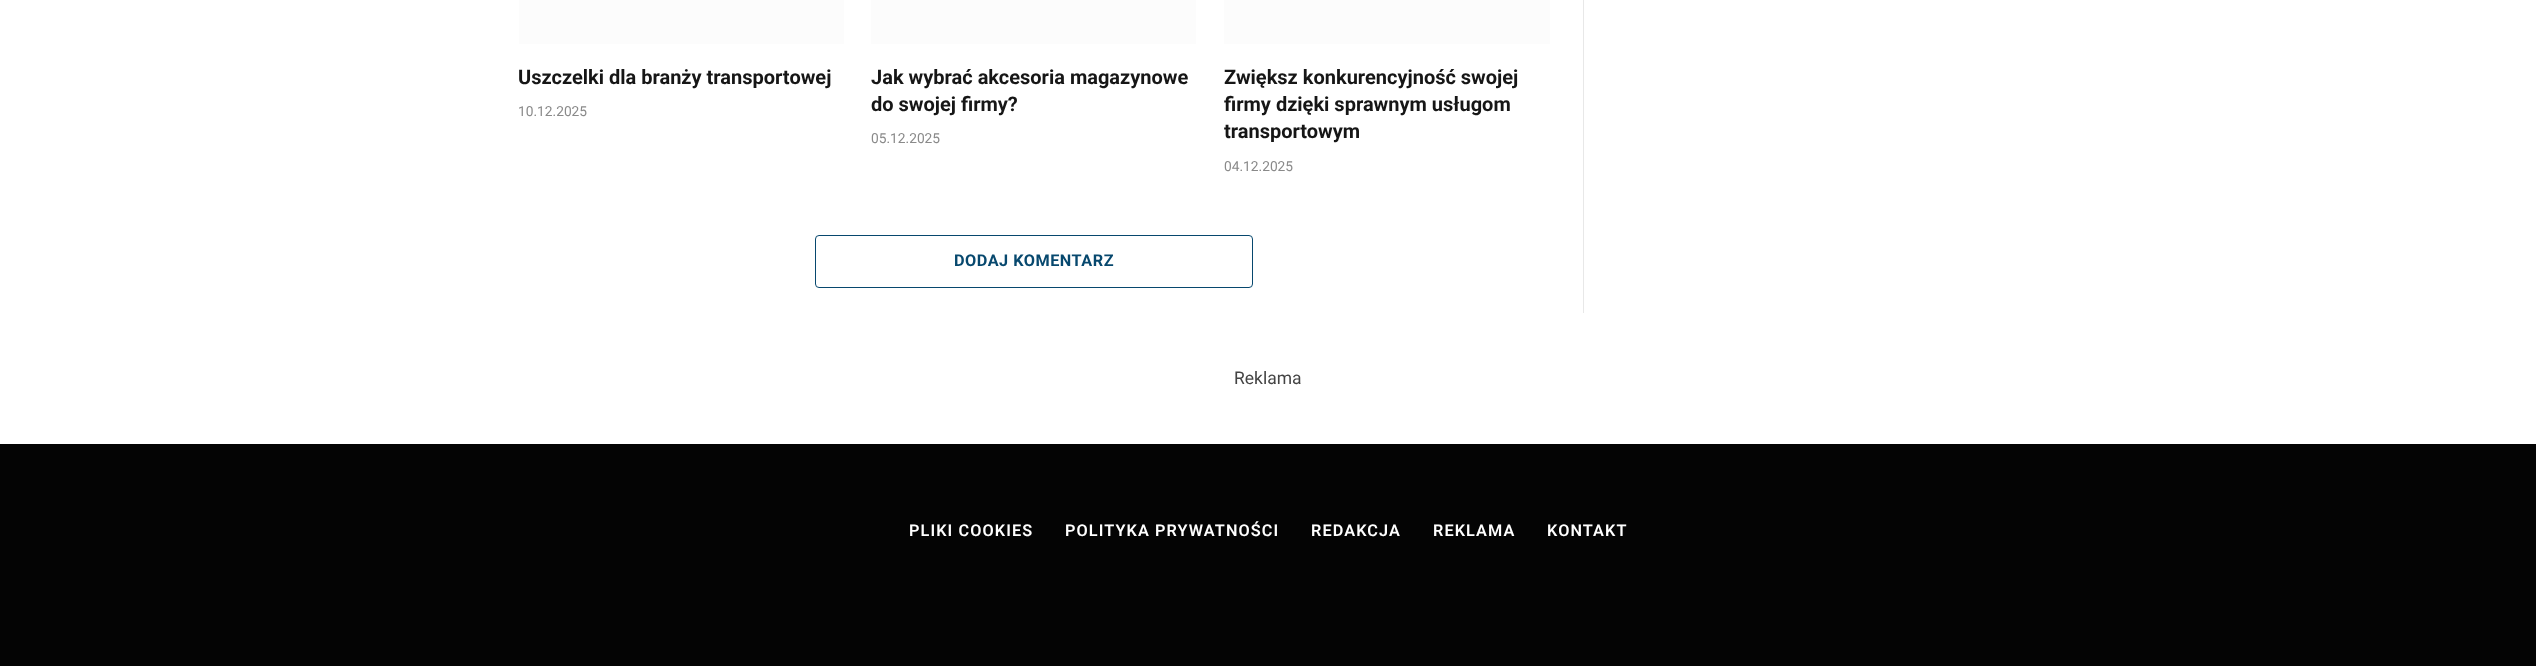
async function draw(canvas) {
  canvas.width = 2536
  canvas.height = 666
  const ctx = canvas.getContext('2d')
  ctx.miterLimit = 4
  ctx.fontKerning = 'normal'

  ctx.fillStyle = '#fff'
  ctx.fillRect(0, 0, 2536, 666)
  ctx.fillStyle = '#fcfcfc'
  ctx.fillRect(519, 0, 325, 44)
  ctx.font = 'bold 20px Roboto'
  ctx.fillStyle = '#161616'
  ctx.fillText('Uszczelki dla branży transportowej', 518, 84)
  ctx.font = '13.75px Roboto'
  ctx.fillStyle = '#8a8a8a'
  ctx.fillText('10.12.2025', 518, 116)
  ctx.fillStyle = '#fcfcfc'
  ctx.fillRect(871, 0, 325, 44)
  ctx.font = 'bold 20px Roboto'
  ctx.fillStyle = '#161616'
  ctx.fillText('Jak wybrać akcesoria magazynowe', 871, 84)
  ctx.fillText('do swojej firmy?', 871, 111)
  ctx.font = '13.75px Roboto'
  ctx.fillStyle = '#8a8a8a'
  ctx.fillText('05.12.2025', 871, 143)
  ctx.fillStyle = '#fcfcfc'
  ctx.fillRect(1224, 0, 326, 44)
  ctx.font = 'bold 20px Roboto'
  ctx.fillStyle = '#161616'
  ctx.fillText('Zwiększ konkurencyjność swojej', 1224, 84)
  ctx.fillText('firmy dzięki sprawnym usługom', 1224, 111)
  ctx.fillText('transportowym', 1224, 138)
  ctx.font = '13.75px Roboto'
  ctx.fillStyle = '#8a8a8a'
  ctx.fillText('04.12.2025', 1224, 171)
  ctx.beginPath()
  ctx.roundRect(815.5, 235.5, 437, 52, 3.5)
  ctx.strokeStyle = '#07486e'
  ctx.stroke()
  ctx.letterSpacing = '0.5px'
  ctx.font = 'bold 16.25px Roboto'
  ctx.fillStyle = '#07486e'
  ctx.fillText('DODAJ KOMENTARZ', 954, 266)
  ctx.fillStyle = '#e8e8e8'
  ctx.fillRect(1583, 0, 1, 313)
  ctx.letterSpacing = '0px'
  ctx.font = '17.5px Roboto'
  ctx.fillStyle = '#444'
  ctx.fillText('Reklama', 1234, 384)
  ctx.fillStyle = '#040404'
  ctx.fillRect(0, 444, 2536, 222)
  ctx.letterSpacing = '1.1px'
  ctx.font = '600 16.25px Roboto'
  ctx.fillStyle = '#fff'
  ctx.fillText('PLIKI COOKIES', 909, 536)
  ctx.fillText('POLITYKA PRYWATNOŚCI', 1065, 536)
  ctx.fillText('REDAKCJA', 1311, 536)
  ctx.fillText('REKLAMA', 1433, 536)
  ctx.fillText('KONTAKT', 1547, 536)
}

draw(document.querySelector('canvas'))
